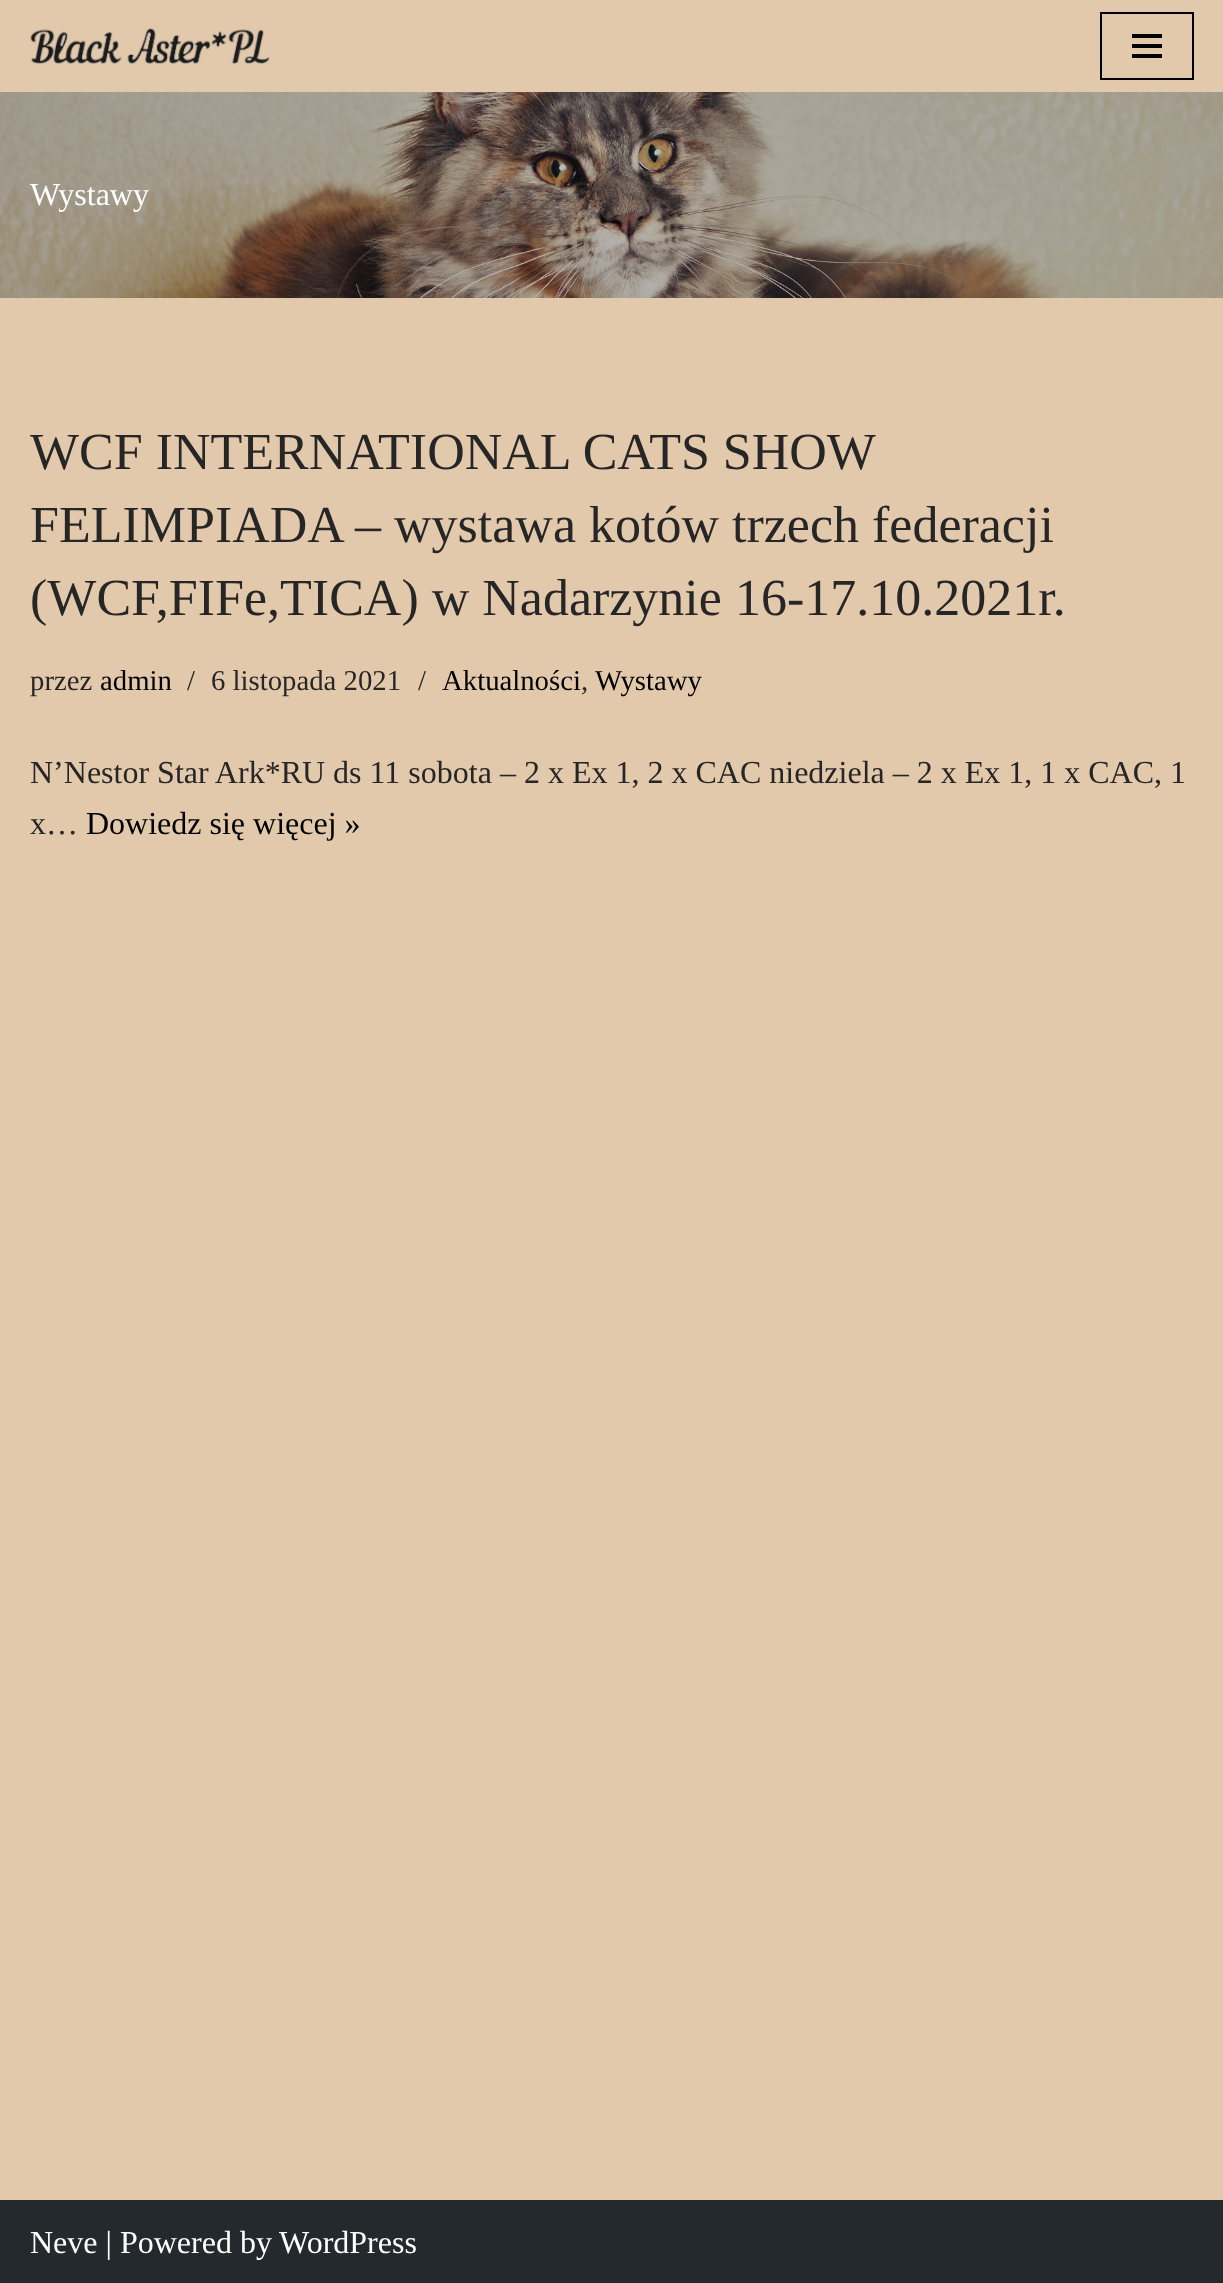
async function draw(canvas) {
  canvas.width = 1223
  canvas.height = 2283
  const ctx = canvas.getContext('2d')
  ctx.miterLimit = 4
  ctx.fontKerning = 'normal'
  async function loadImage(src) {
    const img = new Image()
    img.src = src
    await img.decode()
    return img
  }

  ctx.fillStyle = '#e3c9ab'
  ctx.fillRect(0, 0, 1223, 2283)
  ctx.drawImage(await loadImage('image0.png'), 30, 28, 240, 36)
  ctx.strokeStyle = '#000'
  ctx.lineWidth = 2
  ctx.strokeRect(1101, 13, 92, 66)
  ctx.fillStyle = '#000'
  ctx.fillRect(1132, 34, 30, 4)
  ctx.fillRect(1132, 44, 30, 4)
  ctx.fillRect(1132, 54, 30, 4)
  ctx.drawImage(await loadImage('image1.png'), 0, 92, 1223, 206)
  ctx.font = '32px Liberation Serif'
  ctx.fillStyle = '#fff'
  ctx.fillText('Wystawy', 30, 205)
  ctx.font = '52px Liberation Serif'
  ctx.fillStyle = '#272626'
  ctx.fillText('WCF INTERNATIONAL CATS SHOW', 30, 469)
  ctx.fillText('FELIMPIADA – wystawa kotów trzech federacji', 30, 542)
  ctx.fillText('(WCF,FIFe,TICA) w Nadarzynie 16-17.10.2021r.', 30, 615)
  ctx.font = '28.75px Liberation Serif'
  ctx.fillText('przez', 30, 690)
  ctx.fillStyle = '#000'
  ctx.fillText('admin', 100, 690)
  ctx.fillStyle = '#272626'
  ctx.fillText('/', 187, 690)
  ctx.fillText('6 listopada 2021', 211, 690)
  ctx.fillText('/', 418, 690)
  ctx.fillStyle = '#000'
  ctx.fillText('Aktualności', 442, 690)
  ctx.fillStyle = '#272626'
  ctx.fillText(',', 581, 690)
  ctx.fillStyle = '#000'
  ctx.fillText('Wystawy', 595, 690)
  ctx.font = '32px Liberation Serif'
  ctx.fillStyle = '#272626'
  ctx.fillText('N’Nestor Star Ark*RU ds 11 sobota – 2 x Ex 1, 2 x CAC niedziela – 2 x Ex 1, 1 x CAC, 1', 30, 783)
  ctx.fillText('x…', 30, 834)
  ctx.fillStyle = '#000'
  ctx.fillText('Dowiedz się więcej »', 86, 834)
  ctx.fillStyle = '#24292e'
  ctx.fillRect(0, 2200, 1223, 83)
  ctx.fillStyle = '#fff'
  ctx.fillText('Neve | Powered by', 30, 2253)
  ctx.fillText('WordPress', 279, 2253)
}

draw(document.querySelector('canvas'))
